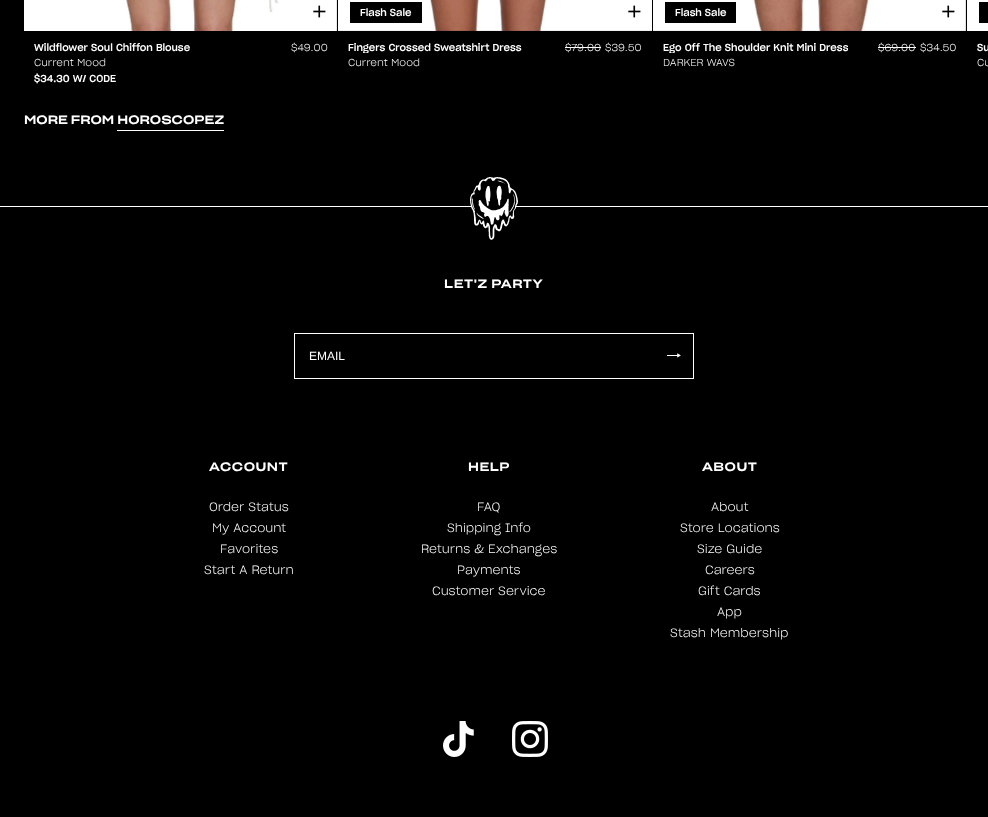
async function draw(canvas) {
  canvas.width = 988
  canvas.height = 817
  const ctx = canvas.getContext('2d')
  ctx.miterLimit = 4
  ctx.fontKerning = 'normal'
  async function loadImage(src) {
    const img = new Image()
    img.src = src
    await img.decode()
    return img
  }

  ctx.fillStyle = '#000'
  ctx.fillRect(0, 0, 988, 817)
  ctx.drawImage(await loadImage('image0.png'), 24, 0, 313, 31)
  ctx.drawImage(await loadImage('image1.png'), 313, 5, 13, 13)
  ctx.font = '500 10px "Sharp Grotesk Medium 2"'
  ctx.fillStyle = '#fff'
  ctx.fillText('Wildflower Soul Chiffon Blouse', 34, 51)
  ctx.font = '300 10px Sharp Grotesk'
  ctx.fillText('Current Mood', 34, 66)
  ctx.fillText('$49.00', 291, 51)
  ctx.font = '500 10px "Sharp Grotesk Medium 2"'
  ctx.fillText('$34.30 W/ CODE', 34, 82)
  ctx.drawImage(await loadImage('image2.png'), 338, 0, 314, 31)
  ctx.fillStyle = '#000'
  ctx.fillRect(350, 2, 72, 21)
  ctx.fillStyle = '#fff'
  ctx.fillText('Flash Sale', 360, 16)
  ctx.drawImage(await loadImage('image1.png'), 628, 5, 13, 13)
  ctx.save()
  ctx.beginPath()
  ctx.rect(348, 43, 174, 10)
  ctx.clip()
  ctx.fillText('Fingers Crossed Sweatshirt Dress', 348, 51)
  ctx.restore()
  ctx.font = '300 10px Sharp Grotesk'
  ctx.fillText('Current Mood', 348, 66)
  ctx.fillText('$79.00', 565, 51)
  ctx.fillRect(565, 47, 36, 1)
  ctx.fillText('$39.50', 605, 51)
  ctx.drawImage(await loadImage('image3.png'), 653, 0, 313, 31)
  ctx.fillStyle = '#000'
  ctx.fillRect(665, 2, 71, 21)
  ctx.font = '500 10px "Sharp Grotesk Medium 2"'
  ctx.fillStyle = '#fff'
  ctx.fillText('Flash Sale', 675, 16)
  ctx.drawImage(await loadImage('image1.png'), 942, 5, 13, 13)
  ctx.save()
  ctx.beginPath()
  ctx.rect(663, 43, 185, 10)
  ctx.clip()
  ctx.fillText('Ego Off The Shoulder Knit Mini Dress', 663, 51)
  ctx.restore()
  ctx.font = '300 10px Sharp Grotesk'
  ctx.fillText('DARKER WAVS', 663, 66)
  ctx.fillText('$69.00', 878, 51)
  ctx.fillRect(878, 47, 38, 1)
  ctx.fillText('$34.50', 920, 51)
  ctx.fillRect(967, 0, 21, 31)
  ctx.fillStyle = '#000'
  ctx.fillRect(979, 2, 9, 21)
  ctx.font = '500 10px "Sharp Grotesk Medium 2"'
  ctx.fillStyle = '#fff'
  ctx.fillText('Su', 977, 51)
  ctx.font = '300 10px Sharp Grotesk'
  ctx.fillText('Cu', 977, 66)
  ctx.font = '500 12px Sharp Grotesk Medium'
  ctx.fillText('MORE FROM HOROSCOPEZ', 24, 124)
  ctx.fillRect(117, 130, 107, 1)
  ctx.fillRect(0, 206, 988, 1)
  ctx.drawImage(await loadImage('image4.png'), 470, 177, 48, 63)
  ctx.letterSpacing = '0.5px'
  ctx.fillText('LET\'Z PARTY', 444, 288)
  ctx.strokeStyle = '#fff'
  ctx.strokeRect(294.5, 333.5, 399, 45)
  ctx.letterSpacing = '0px'
  ctx.font = '12px Liberation Sans'
  ctx.fillText('EMAIL', 309, 360)
  ctx.drawImage(await loadImage('image5.png'), 667, 353, 14, 5)
  ctx.letterSpacing = '0.5px'
  ctx.font = '500 12px Sharp Grotesk Medium'
  ctx.fillText('ACCOUNT', 209, 471)
  ctx.letterSpacing = '0px'
  ctx.font = '300 12px Sharp Grotesk'
  ctx.fillText('Order Status', 209, 511)
  ctx.fillText('My Account', 212, 532)
  ctx.fillText('Favorites', 220, 553)
  ctx.fillText('Start A Return', 204, 574)
  ctx.letterSpacing = '0.5px'
  ctx.font = '500 12px Sharp Grotesk Medium'
  ctx.fillText('HELP', 468, 471)
  ctx.letterSpacing = '0px'
  ctx.font = '300 12px Sharp Grotesk'
  ctx.fillText('FAQ', 477, 511)
  ctx.fillText('Shipping Info', 447, 532)
  ctx.fillText('Returns & Exchanges', 421, 553)
  ctx.fillText('Payments', 457, 574)
  ctx.fillText('Customer Service', 432, 595)
  ctx.letterSpacing = '0.5px'
  ctx.font = '500 12px Sharp Grotesk Medium'
  ctx.fillText('ABOUT', 702, 471)
  ctx.letterSpacing = '0px'
  ctx.font = '300 12px Sharp Grotesk'
  ctx.fillText('About', 711, 511)
  ctx.fillText('Store Locations', 680, 532)
  ctx.fillText('Size Guide', 697, 553)
  ctx.fillText('Careers', 705, 574)
  ctx.fillText('Gift Cards', 698, 595)
  ctx.fillText('App', 717, 616)
  ctx.fillText('Stash Membership', 670, 637)
  ctx.drawImage(await loadImage('image6.png'), 443, 721, 31, 36)
  ctx.drawImage(await loadImage('image7.png'), 512, 721, 36, 36)
}

draw(document.querySelector('canvas'))
